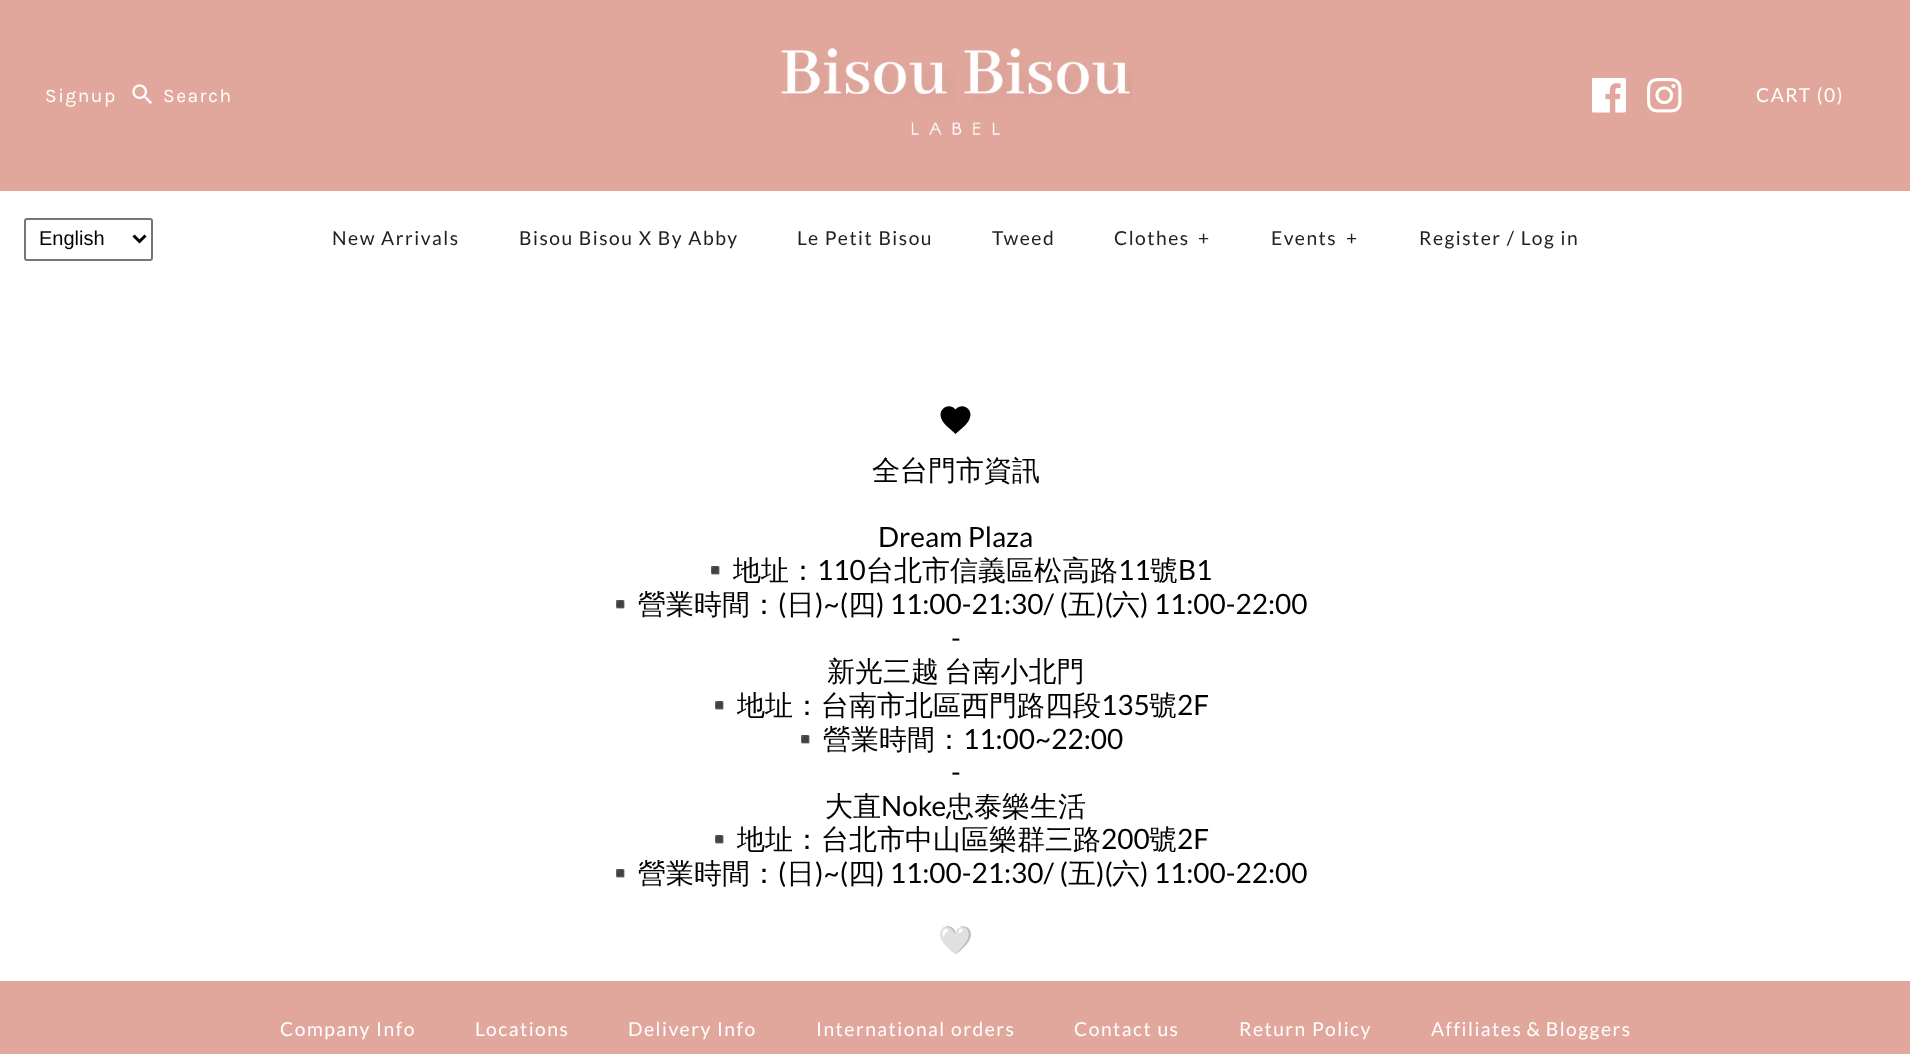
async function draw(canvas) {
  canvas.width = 1910
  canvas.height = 1054
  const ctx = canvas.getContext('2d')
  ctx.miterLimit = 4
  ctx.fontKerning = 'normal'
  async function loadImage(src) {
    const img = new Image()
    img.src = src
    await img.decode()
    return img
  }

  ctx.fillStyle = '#fff'
  ctx.fillRect(0, 0, 1910, 1054)
  ctx.fillStyle = '#e1a79d'
  ctx.fillRect(0, 0, 1910, 191)
  ctx.drawImage(await loadImage('image0.png'), 781, 48, 351, 87)
  ctx.letterSpacing = '1.5px'
  ctx.font = '19.25px Karla'
  ctx.fillStyle = '#fff'
  ctx.fillText('Signup', 45, 102)
  ctx.drawImage(await loadImage('image1.png'), 132, 84, 20, 20)
  ctx.fillText('Search', 163, 102)
  ctx.drawImage(await loadImage('image2.png'), 1592, 78, 34, 35)
  ctx.drawImage(await loadImage('image3.png'), 1647, 78, 35, 35)
  ctx.font = '19.25px Lato'
  ctx.fillText('CART (0)', 1756, 102)
  ctx.beginPath()
  ctx.roundRect(25, 219, 127, 41, 2)
  ctx.strokeStyle = '#767676'
  ctx.lineWidth = 2
  ctx.stroke()
  ctx.beginPath()
  ctx.moveTo(133.5, 235.5)
  ctx.lineTo(139.5, 241.5)
  ctx.lineTo(145.5, 235.5)
  ctx.strokeStyle = '#000'
  ctx.lineWidth = 3
  ctx.stroke()
  ctx.letterSpacing = '0px'
  ctx.font = '20px Liberation Sans'
  ctx.fillStyle = '#000'
  ctx.fillText('English', 39, 245)
  ctx.letterSpacing = '1.5px'
  ctx.font = '19.25px Lato'
  ctx.fillStyle = '#242020'
  ctx.fillText('New Arrivals', 332, 245)
  ctx.fillText('Bisou Bisou X By Abby', 519, 245)
  ctx.fillText('Le Petit Bisou', 797, 245)
  ctx.fillText('Tweed', 992, 245)
  ctx.fillText('Clothes', 1114, 245)
  ctx.fillText('+', 1198, 245)
  ctx.fillText('Events', 1271, 245)
  ctx.fillText('+', 1346, 245)
  ctx.fillText('Register / Log in', 1419, 245)
  ctx.fillStyle = '#e1a79d'
  ctx.fillRect(0, 981, 1910, 73)
  ctx.fillStyle = '#000'
  ctx.beginPath()
  ctx.moveTo(955.5, 434)
  ctx.bezierCurveTo(951, 429.5, 944, 425, 941.5, 419)
  ctx.bezierCurveTo(937, 409, 949, 402, 955.5, 409.5)
  ctx.bezierCurveTo(962, 402, 974, 409, 969.5, 419)
  ctx.bezierCurveTo(967, 425, 960.5, 429.5, 955.5, 434)
  ctx.closePath()
  ctx.fill()
  ctx.letterSpacing = '0px'
  ctx.font = '500 28px WenQuanYi Zen Hei'
  ctx.fillText('全台門市資訊', 872, 480)
  ctx.font = '28px Lato'
  ctx.fillText('Dream Plaza', 878, 547)
  ctx.font = '28px Noto Color Emoji'
  ctx.fillText('▪️', 698, 580)
  ctx.font = '500 28px WenQuanYi Zen Hei'
  ctx.fillText('地址：', 733, 580)
  ctx.font = '28px Lato'
  ctx.fillText('110', 817, 580)
  ctx.font = '500 28px WenQuanYi Zen Hei'
  ctx.fillText('台北市信義區松高路', 866, 580)
  ctx.font = '28px Lato'
  ctx.fillText('11', 1118, 580)
  ctx.font = '500 28px WenQuanYi Zen Hei'
  ctx.fillText('號', 1150, 580)
  ctx.font = '28px Lato'
  ctx.fillText('B1', 1178, 580)
  ctx.font = '28px Noto Color Emoji'
  ctx.fillText('▪️', 603, 614)
  ctx.font = '500 28px WenQuanYi Zen Hei'
  ctx.fillText('營業時間： 日', 638, 614)
  ctx.fillText('六', 1112, 614)
  ctx.font = '28px Lato'
  ctx.fillText('(', 778, 614)
  ctx.fillText(')~(', 815, 614)
  ctx.font = '500 28px WenQuanYi Zen Hei'
  ctx.fillText('四', 848, 614)
  ctx.font = '28px Lato'
  ctx.fillText(') 11:00-21:30/ (', 876, 614)
  ctx.font = '500 28px WenQuanYi Zen Hei'
  ctx.fillText('五', 1068, 614)
  ctx.font = '28px Lato'
  ctx.fillText(')(', 1096, 614)
  ctx.fillText(') 11:00-22:00', 1140, 614)
  ctx.fillText('-', 951, 648)
  ctx.wordSpacing = '-3px'
  ctx.font = '500 28px WenQuanYi Zen Hei'
  ctx.fillText('新光三越 台南小北門', 827, 681)
  ctx.wordSpacing = '0px'
  ctx.font = '28px Noto Color Emoji'
  ctx.fillText('▪️', 702, 715)
  ctx.font = '500 28px WenQuanYi Zen Hei'
  ctx.fillText('地址：台南市北區西門路四段', 737, 715)
  ctx.font = '28px Lato'
  ctx.fillText('135', 1101, 715)
  ctx.font = '500 28px WenQuanYi Zen Hei'
  ctx.fillText('號', 1149, 715)
  ctx.font = '28px Lato'
  ctx.fillText('2F', 1177, 715)
  ctx.font = '28px Noto Color Emoji'
  ctx.fillText('▪️', 788, 749)
  ctx.font = '500 28px WenQuanYi Zen Hei'
  ctx.fillText('營業時間：', 823, 749)
  ctx.font = '28px Lato'
  ctx.fillText('11:00~22:00', 963, 749)
  ctx.fillText('-', 951, 782)
  ctx.font = '500 28px WenQuanYi Zen Hei'
  ctx.fillText('大直', 825, 816)
  ctx.font = '28px Lato'
  ctx.fillText('Noke', 881, 816)
  ctx.font = '500 28px WenQuanYi Zen Hei'
  ctx.fillText('忠泰樂生活', 946, 816)
  ctx.font = '28px Noto Color Emoji'
  ctx.fillText('▪️', 702, 849)
  ctx.font = '500 28px WenQuanYi Zen Hei'
  ctx.fillText('地址：台北市中山區樂群三路', 737, 849)
  ctx.font = '28px Lato'
  ctx.fillText('200', 1101, 849)
  ctx.font = '500 28px WenQuanYi Zen Hei'
  ctx.fillText('號', 1149, 849)
  ctx.font = '28px Lato'
  ctx.fillText('2F', 1177, 849)
  ctx.font = '28px Noto Color Emoji'
  ctx.fillText('▪️', 603, 883)
  ctx.font = '500 28px WenQuanYi Zen Hei'
  ctx.fillText('營業時間： 日', 638, 883)
  ctx.fillText('六', 1112, 883)
  ctx.font = '28px Lato'
  ctx.fillText('(', 778, 883)
  ctx.fillText(')~(', 815, 883)
  ctx.font = '500 28px WenQuanYi Zen Hei'
  ctx.fillText('四', 848, 883)
  ctx.font = '28px Lato'
  ctx.fillText(') 11:00-21:30/ (', 876, 883)
  ctx.font = '500 28px WenQuanYi Zen Hei'
  ctx.fillText('五', 1068, 883)
  ctx.font = '28px Lato'
  ctx.fillText(')(', 1096, 883)
  ctx.fillText(') 11:00-22:00', 1140, 883)
  ctx.font = '28px Noto Color Emoji'
  ctx.fillText('🤍', 938, 950)
  ctx.letterSpacing = '1.5px'
  ctx.font = '19.25px Lato'
  ctx.fillStyle = '#fff'
  ctx.fillText('Company Info', 280, 1036)
  ctx.fillText('Locations', 475, 1036)
  ctx.fillText('Delivery Info', 628, 1036)
  ctx.fillText('International orders', 816, 1036)
  ctx.fillText('Contact us', 1074, 1036)
  ctx.fillText('Return Policy', 1239, 1036)
  ctx.wordSpacing = '-1px'
  ctx.fillText('Affiliates & Bloggers', 1431, 1036)
}

draw(document.querySelector('canvas'))
